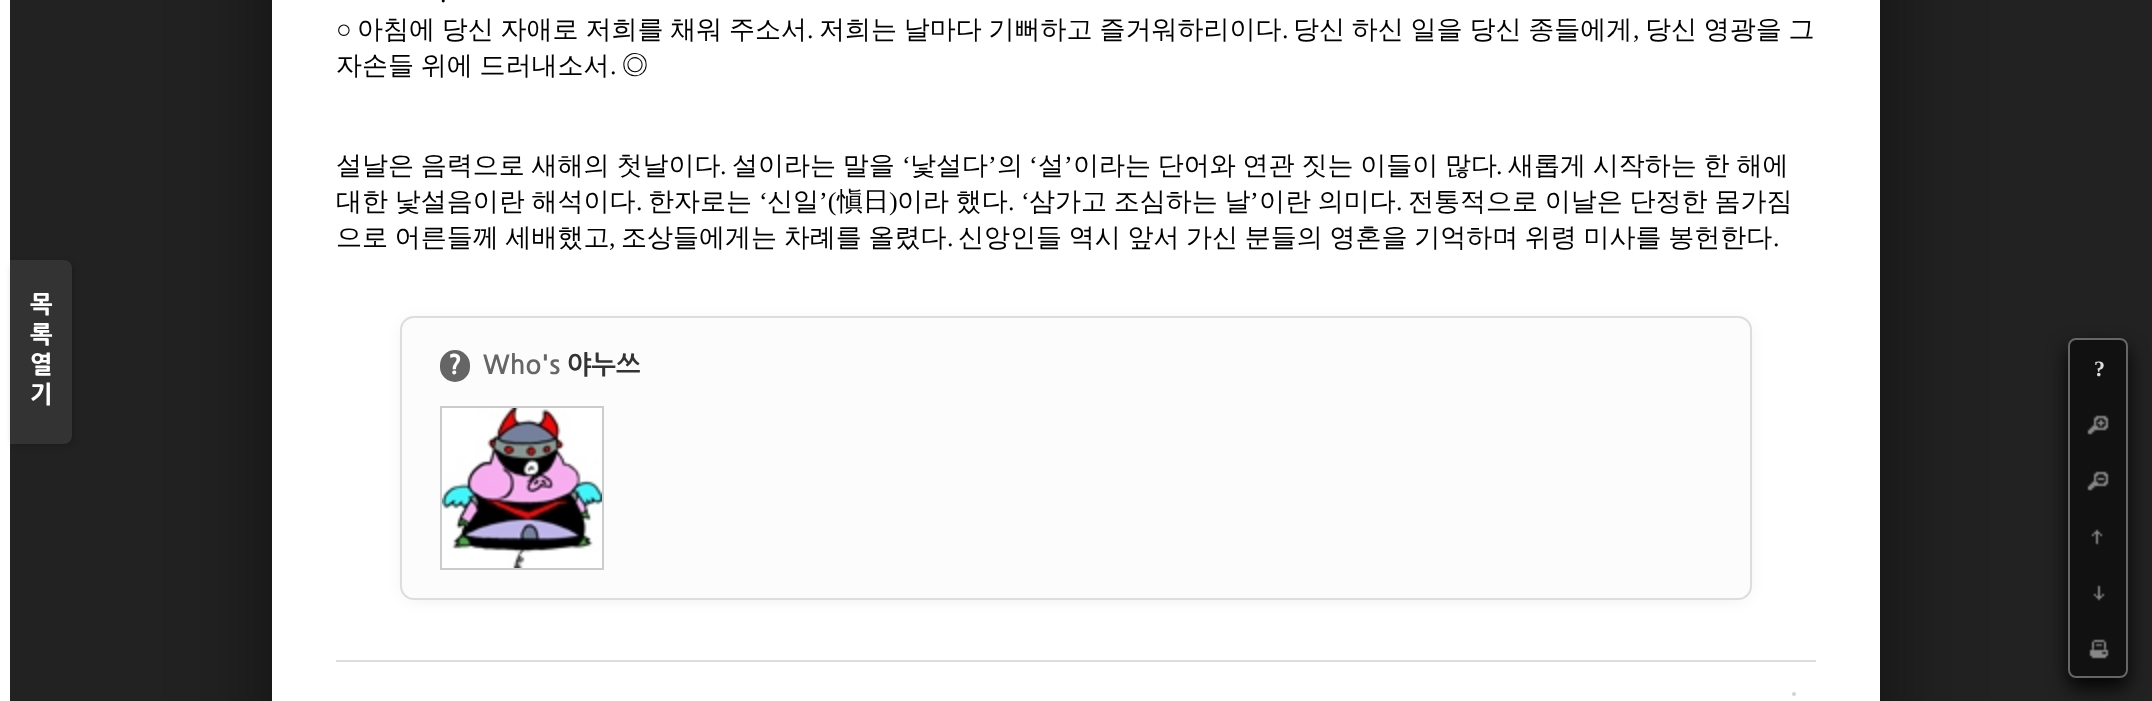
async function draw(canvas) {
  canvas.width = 2152
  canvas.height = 701
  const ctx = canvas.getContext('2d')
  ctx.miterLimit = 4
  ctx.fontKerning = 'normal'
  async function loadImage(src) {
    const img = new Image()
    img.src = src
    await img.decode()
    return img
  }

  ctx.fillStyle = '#222'
  ctx.fillRect(0, 0, 2152, 701)
  ctx.fillStyle = '#00000080'
  ctx.filter = 'blur(48px)'
  ctx.beginPath()
  ctx.rect(272, -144, 1608, 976)
  ctx.fill()
  ctx.filter = 'none'
  ctx.fillStyle = '#fff'
  ctx.fillRect(272, 0, 1608, 701)
  ctx.fillRect(0, 0, 10, 701)
  ctx.fillStyle = '#00000033'
  ctx.filter = 'blur(3px)'
  ctx.beginPath()
  ctx.roundRect(12, 262, 62, 184, 8)
  ctx.fill()
  ctx.filter = 'none'
  ctx.fillStyle = '#333'
  ctx.beginPath()
  ctx.roundRect(10, 260, 62, 184, [0, 8, 8, 0])
  ctx.fill()
  ctx.font = '800 24px NanumGothic'
  ctx.fillStyle = '#fefefe'
  ctx.fillText('목', 30, 313)
  ctx.fillText('록', 30, 343)
  ctx.fillText('열', 30, 373)
  ctx.fillText('기', 30, 403)
  ctx.font = '26px Liberation Serif'
  ctx.fillStyle = '#000'
  ctx.fillText('.', 440, 2)
  ctx.fillText('○', 336, 38)
  ctx.wordSpacing = '-1px'
  ctx.font = '500 26px WenQuanYi Zen Hei'
  ctx.fillText('아침에 당신 자애로 저희를 채워 주소서', 357, 38)
  ctx.fillText('저희는 날마다 기뻐하고 즐거워하리이다', 819, 38)
  ctx.fillText('당신 하신 일을 당신 종들에게', 1293, 38)
  ctx.fillText('당신 영광을 그', 1645, 38)
  ctx.wordSpacing = '0px'
  ctx.font = '26px Liberation Serif'
  ctx.fillText('.', 807, 38)
  ctx.fillText('.', 1282, 38)
  ctx.fillText(',', 1633, 38)
  ctx.wordSpacing = '-1px'
  ctx.font = '500 26px WenQuanYi Zen Hei'
  ctx.fillText('자손들 위에 드러내소서', 336, 74)
  ctx.wordSpacing = '0px'
  ctx.font = '26px Liberation Serif'
  ctx.fillText('.', 610, 74)
  ctx.font = '500 26px WenQuanYi Zen Hei'
  ctx.fillText('◎', 622, 74)
  ctx.wordSpacing = '-1px'
  ctx.fillText('설날은 음력으로 새해의 첫날이다', 336, 174)
  ctx.fillText('설이라는 말을', 732, 174)
  ctx.wordSpacing = '0px'
  ctx.font = '26px Liberation Serif'
  ctx.fillText('‘', 902, 174)
  ctx.font = '500 26px WenQuanYi Zen Hei'
  ctx.fillText('낯설다', 910, 174)
  ctx.font = '26px Liberation Serif'
  ctx.fillText('’', 988, 174)
  ctx.font = '500 26px WenQuanYi Zen Hei'
  ctx.fillText('의', 997, 174)
  ctx.font = '26px Liberation Serif'
  ctx.fillText('‘', 1029, 174)
  ctx.font = '500 26px WenQuanYi Zen Hei'
  ctx.fillText('설', 1038, 174)
  ctx.font = '26px Liberation Serif'
  ctx.fillText('’', 1064, 174)
  ctx.wordSpacing = '-1px'
  ctx.font = '500 26px WenQuanYi Zen Hei'
  ctx.fillText('이라는 단어와 연관 짓는 이들이 많다', 1073, 174)
  ctx.fillText('새롭게 시작하는 한 해에', 1508, 174)
  ctx.wordSpacing = '0px'
  ctx.font = '26px Liberation Serif'
  ctx.fillText('.', 720, 174)
  ctx.fillText('.', 1496, 174)
  ctx.wordSpacing = '-1px'
  ctx.font = '500 26px WenQuanYi Zen Hei'
  ctx.fillText('대한 낯설음이란 해석이다', 336, 210)
  ctx.wordSpacing = '0px'
  ctx.fillText('한자로는', 648, 210)
  ctx.font = '26px Liberation Serif'
  ctx.fillText('‘', 759, 210)
  ctx.font = '500 26px WenQuanYi Zen Hei'
  ctx.fillText('신일', 767, 210)
  ctx.font = '26px Liberation Serif'
  ctx.fillText('’(', 819, 210)
  ctx.font = '500 26px WenQuanYi Zen Hei'
  ctx.fillText('愼日', 837, 210)
  ctx.font = '26px Liberation Serif'
  ctx.fillText(')', 889, 210)
  ctx.wordSpacing = '-1px'
  ctx.font = '500 26px WenQuanYi Zen Hei'
  ctx.fillText('이라 했다', 897, 210)
  ctx.wordSpacing = '0px'
  ctx.font = '26px Liberation Serif'
  ctx.fillText('‘', 1021, 210)
  ctx.wordSpacing = '-1px'
  ctx.font = '500 26px WenQuanYi Zen Hei'
  ctx.fillText('삼가고 조심하는 날', 1029, 210)
  ctx.wordSpacing = '0px'
  ctx.font = '26px Liberation Serif'
  ctx.fillText('’', 1250, 210)
  ctx.wordSpacing = '-1px'
  ctx.font = '500 26px WenQuanYi Zen Hei'
  ctx.fillText('이란 의미다', 1259, 210)
  ctx.fillText('전통적으로 이날은 단정한 몸가짐', 1408, 210)
  ctx.wordSpacing = '0px'
  ctx.font = '26px Liberation Serif'
  ctx.fillText('.', 636, 210)
  ctx.fillText('.', 1008, 210)
  ctx.fillText('.', 1396, 210)
  ctx.wordSpacing = '-1.1px'
  ctx.font = '500 26px WenQuanYi Zen Hei'
  ctx.fillText('으로 어른들께 세배했고', 336, 246)
  ctx.wordSpacing = '0px'
  ctx.font = '26px Liberation Serif'
  ctx.fillText(',', 609, 246)
  ctx.wordSpacing = '-1.1px'
  ctx.font = '500 26px WenQuanYi Zen Hei'
  ctx.fillText('조상들에게는 차례를 올렸다', 621, 246)
  ctx.wordSpacing = '0px'
  ctx.font = '26px Liberation Serif'
  ctx.fillText('.', 947, 246)
  ctx.wordSpacing = '-1.1px'
  ctx.font = '500 26px WenQuanYi Zen Hei'
  ctx.fillText('신앙인들 역시 앞서 가신 분들의 영혼을 기억하며 위령 미사를 봉헌한다', 958, 246)
  ctx.wordSpacing = '0px'
  ctx.font = '26px Liberation Serif'
  ctx.fillText('.', 1773, 246)
  ctx.fillStyle = '#0000001a'
  ctx.filter = 'blur(9px)'
  ctx.beginPath()
  ctx.roundRect(406, 324, 1340, 272, 8)
  ctx.fill()
  ctx.filter = 'none'
  ctx.fillStyle = '#fcfcfc'
  ctx.beginPath()
  ctx.roundRect(401, 317, 1350, 282, 13)
  ctx.fill()
  ctx.strokeStyle = '#ddd'
  ctx.lineWidth = 2
  ctx.stroke()
  ctx.fillStyle = '#656565'
  ctx.beginPath()
  ctx.roundRect(440, 350, 30, 32, 15)
  ctx.fill()
  ctx.font = '800 26px NanumGothic'
  ctx.fillStyle = '#fefefe'
  ctx.fillText('?', 448, 374)
  ctx.font = 'bold 26px NanumGothic'
  ctx.fillStyle = '#666'
  ctx.fillText('Who\'s', 483, 374)
  ctx.fillStyle = '#333'
  ctx.fillText('야누쓰', 567, 374)
  ctx.strokeStyle = '#ccc'
  ctx.strokeRect(441, 407, 162, 162)
  ctx.drawImage(await loadImage('image0.png'), 442, 408, 160, 160)
  ctx.fillStyle = '#ddd'
  ctx.fillRect(336, 660, 1480, 2)
  ctx.fillStyle = '#d3d3d3'
  ctx.beginPath()
  ctx.arc(1794, 694, 2, 0, 2 * Math.PI)
  ctx.fill()
  ctx.fillStyle = '#000000e6'
  ctx.filter = 'blur(10px)'
  ctx.beginPath()
  ctx.roundRect(2068, 348, 60, 340, 8)
  ctx.fill()
  ctx.filter = 'none'
  ctx.fillStyle = '#111'
  ctx.beginPath()
  ctx.roundRect(2069, 339, 58, 338, 7)
  ctx.fill()
  ctx.strokeStyle = '#666'
  ctx.stroke()
  ctx.letterSpacing = '-2px'
  ctx.font = 'bold 22px Liberation Serif'
  ctx.fillStyle = '#ddd'
  ctx.fillText('?', 2094, 376)
  ctx.drawImage(await loadImage('image1.png'), 2087, 415, 22, 20)
  ctx.drawImage(await loadImage('image2.png'), 2087, 471, 22, 20)
  ctx.drawImage(await loadImage('image3.png'), 2091, 529, 12, 16)
  ctx.drawImage(await loadImage('image4.png'), 2093, 585, 12, 16)
  ctx.drawImage(await loadImage('image5.png'), 2089, 639, 20, 20)
}

draw(document.querySelector('canvas'))
